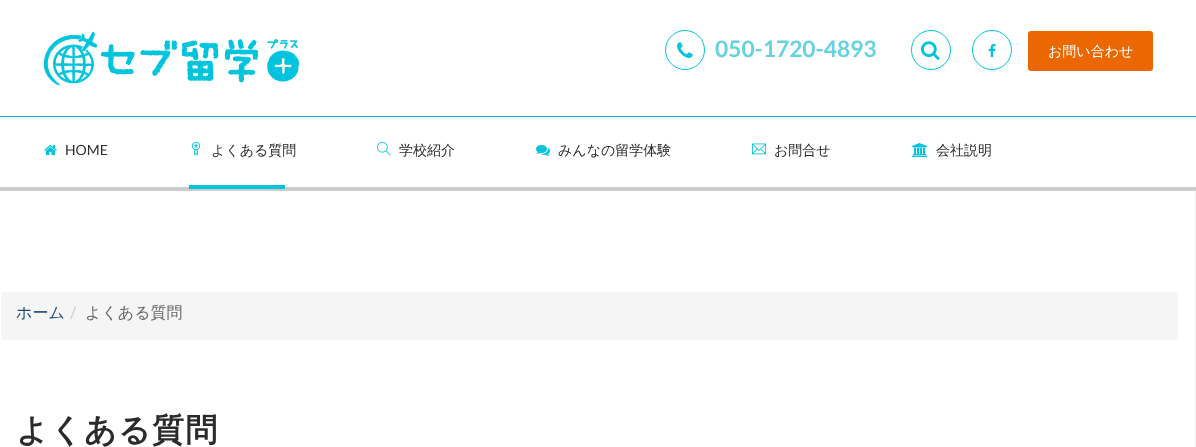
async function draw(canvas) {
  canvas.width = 1196
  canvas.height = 447
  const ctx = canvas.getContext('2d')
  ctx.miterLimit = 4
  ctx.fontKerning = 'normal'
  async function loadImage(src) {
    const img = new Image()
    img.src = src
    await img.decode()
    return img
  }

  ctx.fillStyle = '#fff'
  ctx.fillRect(0, 0, 1196, 447)
  ctx.fillStyle = '#01b3c9'
  ctx.fillRect(0, 116, 1196, 1)
  ctx.drawImage(await loadImage('image0.png'), 43, 31, 257, 55)
  ctx.beginPath()
  ctx.arc(685, 50, 19.5, 0, 2 * Math.PI)
  ctx.strokeStyle = '#00c3de'
  ctx.stroke()
  ctx.drawImage(await loadImage('image1.png'), 677, 42, 16, 16)
  ctx.font = 'bold 22.75px Lato'
  ctx.fillStyle = '#66d2df'
  ctx.fillText('050-1720-4893', 715, 57)
  ctx.beginPath()
  ctx.arc(931, 50, 19.5, 0, 2 * Math.PI)
  ctx.stroke()
  ctx.drawImage(await loadImage('image2.png'), 921, 41, 19, 19)
  ctx.beginPath()
  ctx.arc(992, 50, 19.5, 0, 2 * Math.PI)
  ctx.stroke()
  ctx.drawImage(await loadImage('image3.png'), 988, 44, 8, 13)
  ctx.fillStyle = '#ea6702'
  ctx.beginPath()
  ctx.roundRect(1028, 31, 125, 40, 3)
  ctx.fill()
  ctx.font = '500 14px WenQuanYi Zen Hei'
  ctx.fillStyle = '#fff'
  ctx.fillText('お問い合わせ', 1048, 56)
  ctx.fillStyle = '#ccc'
  ctx.fillRect(0, 187, 1196, 4)
  ctx.drawImage(await loadImage('image4.png'), 44, 145, 13, 10)
  ctx.font = '14px Lato'
  ctx.fillStyle = '#2b2b2b'
  ctx.fillText('HOME', 65, 155)
  ctx.drawImage(await loadImage('image5.png'), 191, 141, 10, 15)
  ctx.font = '500 14px WenQuanYi Zen Hei'
  ctx.fillText('よくある質問', 211, 155)
  ctx.fillStyle = '#00c3de'
  ctx.fillRect(189, 185, 96, 4)
  ctx.drawImage(await loadImage('image6.png'), 377, 141, 14, 15)
  ctx.fillStyle = '#2b2b2b'
  ctx.fillText('学校紹介', 399, 155)
  ctx.drawImage(await loadImage('image7.png'), 536, 145, 14, 11)
  ctx.fillText('みんなの留学体験', 558, 155)
  ctx.drawImage(await loadImage('image8.png'), 752, 143, 14, 12)
  ctx.fillText('お問合せ', 774, 155)
  ctx.drawImage(await loadImage('image9.png'), 912, 143, 15, 14)
  ctx.fillText('会社説明', 936, 155)
  ctx.fillStyle = '#eaecee'
  ctx.fillRect(1195, 191, 1, 256)
  ctx.fillStyle = '#f5f5f5'
  ctx.beginPath()
  ctx.roundRect(1, 292, 1177, 48, 4)
  ctx.fill()
  ctx.font = '500 16px WenQuanYi Zen Hei'
  ctx.fillStyle = '#1e4b75'
  ctx.fillText('ホーム', 16, 318)
  ctx.font = '16px Roboto'
  ctx.fillStyle = '#ccc'
  ctx.fillText('/', 70, 318)
  ctx.font = '500 16px WenQuanYi Zen Hei'
  ctx.fillStyle = '#686868'
  ctx.fillText('よくある質問', 85, 318)
  ctx.letterSpacing = '1.25px'
  ctx.font = 'bold 32px WenQuanYi Zen Hei'
  ctx.fillStyle = '#2b2b2b'
  ctx.fillText('よくある質問', 16, 441)
}

draw(document.querySelector('canvas'))
